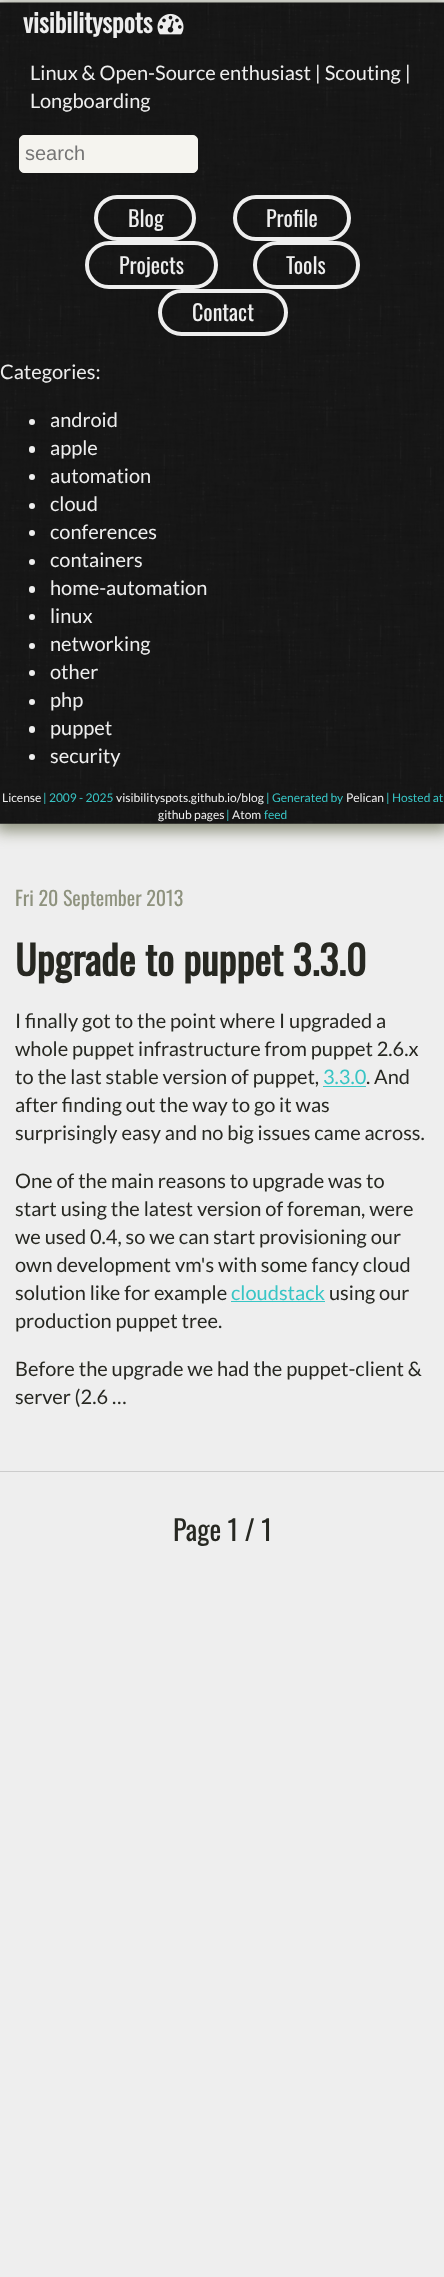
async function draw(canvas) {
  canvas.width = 444
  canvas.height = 2277
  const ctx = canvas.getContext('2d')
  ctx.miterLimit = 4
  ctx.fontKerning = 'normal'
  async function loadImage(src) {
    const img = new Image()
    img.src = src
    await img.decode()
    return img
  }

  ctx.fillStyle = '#eee'
  ctx.fillRect(0, 0, 444, 2277)
  ctx.fillStyle = '#8e927e'
  ctx.filter = 'blur(7.5px)'
  ctx.beginPath()
  ctx.rect(-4, 3, 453, 828)
  ctx.fill()
  ctx.filter = 'none'
  ctx.drawImage(await loadImage('image0.png'), 0, 2, 444, 822)
  ctx.font = 'bold 26px Oswald'
  ctx.fillStyle = '#eee'
  ctx.fillText('visibilityspots', 23, 33)
  ctx.drawImage(await loadImage('image1.png'), 157, 13, 27, 22)
  ctx.font = '20px Lato'
  ctx.fillText('Linux & Open-Source enthusiast | Scouting |', 30, 80)
  ctx.fillText('Longboarding', 30, 108)
  ctx.fillStyle = '#f5f4ef'
  ctx.beginPath()
  ctx.roundRect(19.5, 135.5, 178, 37, 4.5)
  ctx.fill()
  ctx.strokeStyle = '#f5f4ef'
  ctx.stroke()
  ctx.font = '20px Liberation Sans'
  ctx.fillStyle = '#757575'
  ctx.fillText('search', 25, 160)
  ctx.beginPath()
  ctx.roundRect(96, 197, 98, 42, 21)
  ctx.strokeStyle = '#eee'
  ctx.lineWidth = 4
  ctx.stroke()
  ctx.font = '22px Oswald'
  ctx.fillStyle = '#eee'
  ctx.fillText('Blog', 128, 227)
  ctx.beginPath()
  ctx.roundRect(235, 197, 114, 42, 21)
  ctx.stroke()
  ctx.fillText('Profile', 266, 227)
  ctx.beginPath()
  ctx.roundRect(87, 243, 129, 44, 22)
  ctx.stroke()
  ctx.fillText('Projects', 119, 274)
  ctx.beginPath()
  ctx.roundRect(255, 243, 103, 44, 22)
  ctx.stroke()
  ctx.fillText('Tools', 286, 274)
  ctx.beginPath()
  ctx.roundRect(160, 291, 126, 43, 21.5)
  ctx.stroke()
  ctx.fillText('Contact', 192, 321)
  ctx.font = '20px Lato'
  ctx.fillText('Categories:', 0, 379)
  ctx.beginPath()
  ctx.arc(32, 422, 3, 0, 2 * Math.PI)
  ctx.fill()
  ctx.fillText('android', 50, 427)
  ctx.beginPath()
  ctx.roundRect(29, 446, 6, 7, 3)
  ctx.fill()
  ctx.fillText('apple', 50, 455)
  ctx.beginPath()
  ctx.arc(32, 477, 3, 0, 2 * Math.PI)
  ctx.fill()
  ctx.fillText('automation', 50, 483)
  ctx.beginPath()
  ctx.arc(32, 506, 3, 0, 2 * Math.PI)
  ctx.fill()
  ctx.fillText('cloud', 50, 511)
  ctx.beginPath()
  ctx.arc(32, 533, 3, 0, 2 * Math.PI)
  ctx.fill()
  ctx.fillText('conferences', 50, 539)
  ctx.beginPath()
  ctx.arc(32, 562, 3, 0, 2 * Math.PI)
  ctx.fill()
  ctx.fillText('containers', 50, 567)
  ctx.beginPath()
  ctx.roundRect(29, 586, 6, 7, 3)
  ctx.fill()
  ctx.fillText('home-automation', 50, 595)
  ctx.beginPath()
  ctx.arc(32, 617, 3, 0, 2 * Math.PI)
  ctx.fill()
  ctx.fillText('linux', 50, 623)
  ctx.beginPath()
  ctx.arc(32, 646, 3, 0, 2 * Math.PI)
  ctx.fill()
  ctx.fillText('networking', 50, 651)
  ctx.beginPath()
  ctx.arc(32, 673, 3, 0, 2 * Math.PI)
  ctx.fill()
  ctx.fillText('other', 50, 679)
  ctx.beginPath()
  ctx.arc(32, 702, 3, 0, 2 * Math.PI)
  ctx.fill()
  ctx.fillText('php', 50, 707)
  ctx.beginPath()
  ctx.roundRect(29, 726, 6, 7, 3)
  ctx.fill()
  ctx.fillText('puppet', 50, 735)
  ctx.beginPath()
  ctx.arc(32, 757, 3, 0, 2 * Math.PI)
  ctx.fill()
  ctx.fillText('security', 50, 763)
  ctx.font = '12px Lato'
  ctx.fillText('License', 2, 802)
  ctx.fillStyle = '#38c5c5'
  ctx.fillText('| 2009 - 2025', 43, 802)
  ctx.fillStyle = '#eee'
  ctx.fillText('visibilityspots.github.io/blog', 116, 802)
  ctx.fillStyle = '#38c5c5'
  ctx.fillText('| Generated by', 266, 802)
  ctx.fillStyle = '#eee'
  ctx.fillText('Pelican', 346, 802)
  ctx.fillStyle = '#38c5c5'
  ctx.fillText('| Hosted at', 386, 802)
  ctx.fillStyle = '#eee'
  ctx.fillText('github pages', 158, 819)
  ctx.fillStyle = '#38c5c5'
  ctx.fillText('|', 226, 819)
  ctx.fillStyle = '#eee'
  ctx.fillText('Atom', 232, 819)
  ctx.fillStyle = '#38c5c5'
  ctx.fillText('feed', 264, 819)
  ctx.font = '20px Oswald'
  ctx.fillStyle = '#8e927e'
  ctx.fillText('Fri 20 September 2013', 15, 906)
  ctx.font = 'bold 40px Oswald'
  ctx.fillStyle = '#272822'
  ctx.fillText('Upgrade to puppet 3.3.0', 15, 976)
  ctx.font = '20px Lato'
  ctx.fillText('I finally got to the point where I upgraded a', 15, 1028)
  ctx.fillText('whole puppet infrastructure from puppet 2.6.x', 15, 1056)
  ctx.fillText('to the last stable version of puppet,', 15, 1084)
  ctx.fillStyle = '#38c5c5'
  ctx.fillText('3.3.0', 323, 1084)
  ctx.fillRect(323, 1086, 43, 1)
  ctx.fillStyle = '#272822'
  ctx.fillText('. And', 366, 1084)
  ctx.fillText('after finding out the way to go it was', 15, 1112)
  ctx.fillText('surprisingly easy and no big issues came across.', 15, 1140)
  ctx.fillText('One of the main reasons to upgrade was to', 15, 1188)
  ctx.fillText('start using the latest version of foreman, were', 15, 1216)
  ctx.fillText('we used 0.4, so we can start provisioning our', 15, 1244)
  ctx.fillText('own development vm\'s with some fancy cloud', 15, 1272)
  ctx.fillText('solution like for example', 15, 1300)
  ctx.fillStyle = '#38c5c5'
  ctx.fillText('cloudstack', 231, 1300)
  ctx.fillRect(231, 1301, 94, 1)
  ctx.fillStyle = '#272822'
  ctx.fillText('using our', 329, 1300)
  ctx.fillText('production puppet tree.', 15, 1328)
  ctx.fillText('Before the upgrade we had the puppet-client &', 15, 1376)
  ctx.fillText('server (2.6 …', 15, 1404)
  ctx.fillStyle = '#ccc'
  ctx.fillRect(0, 1471, 444, 1)
  ctx.font = '28px Oswald'
  ctx.fillStyle = '#272822'
  ctx.fillText('Page 1 / 1', 173, 1541)
}

draw(document.querySelector('canvas'))
